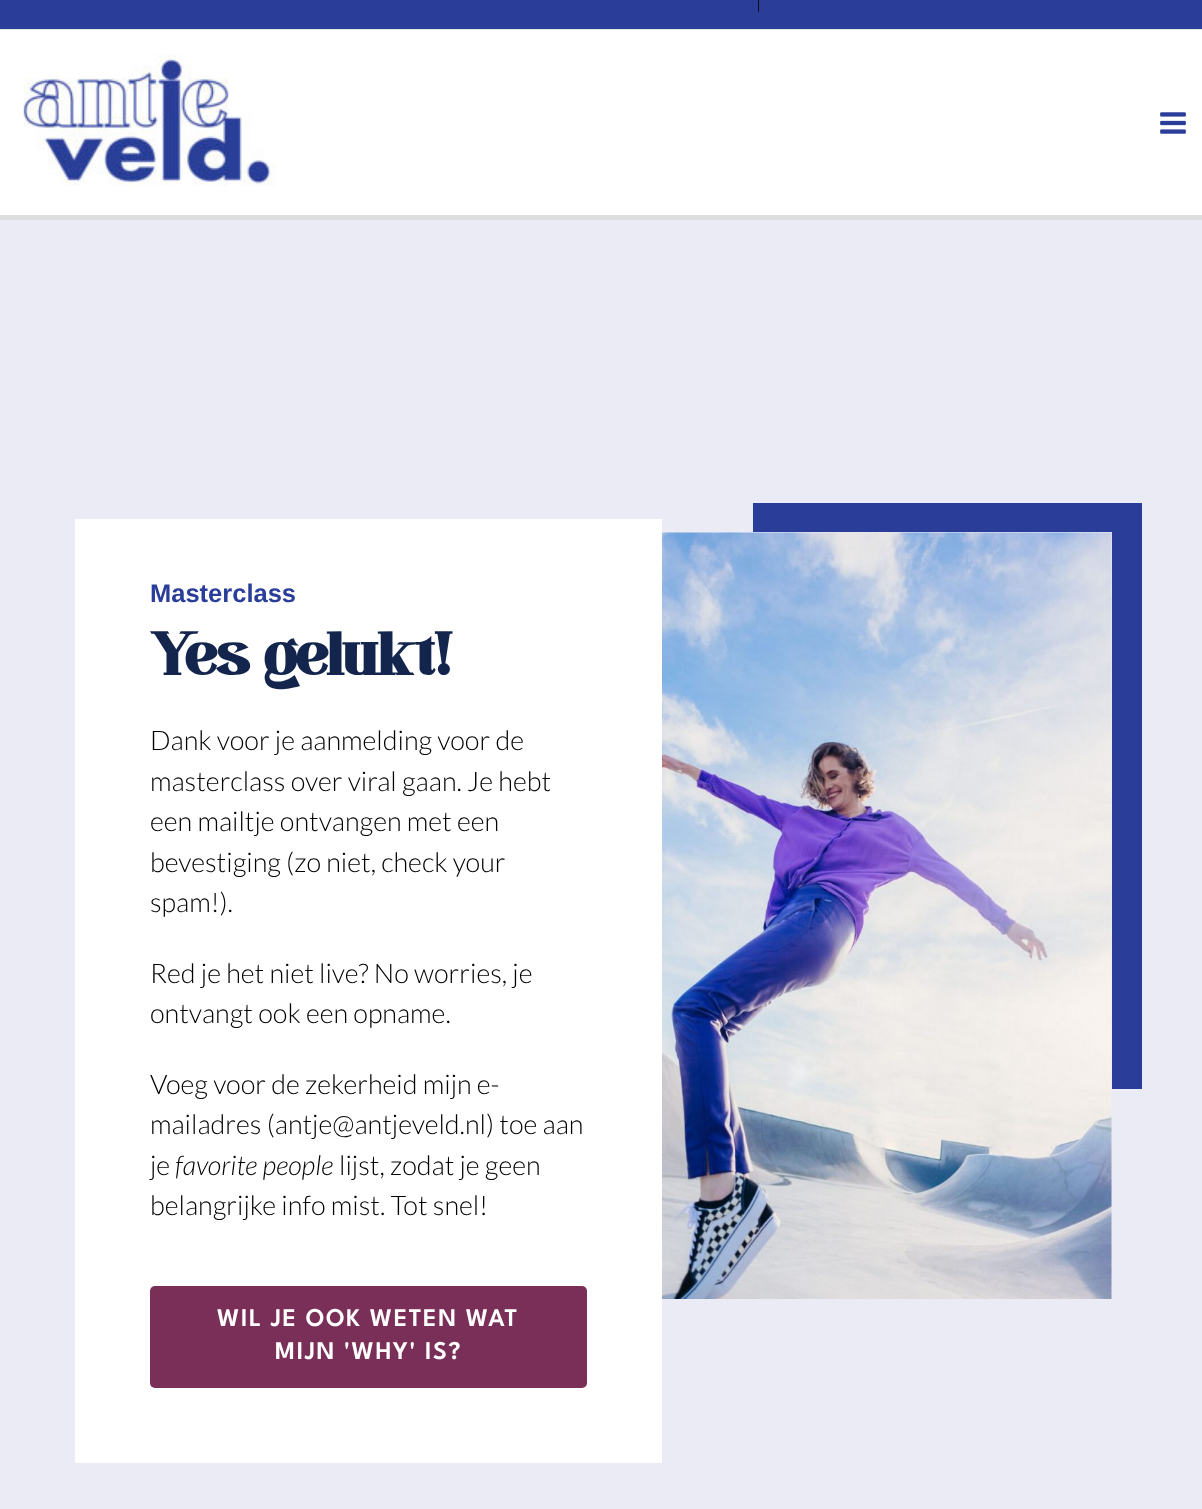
async function draw(canvas) {
  canvas.width = 1202
  canvas.height = 1509
  const ctx = canvas.getContext('2d')
  ctx.miterLimit = 4
  ctx.fontKerning = 'normal'
  async function loadImage(src) {
    const img = new Image()
    img.src = src
    await img.decode()
    return img
  }

  ctx.fillStyle = '#eaebf5'
  ctx.fillRect(0, 0, 1202, 1509)
  ctx.fillStyle = '#2a3e99'
  ctx.fillRect(0, 0, 1202, 29)
  ctx.fillStyle = '#e5e5e5'
  ctx.fillRect(0, 29, 1202, 1)
  ctx.fillStyle = '#0d0d0d'
  ctx.fillRect(758, 0, 1, 12)
  ctx.fillStyle = '#fff'
  ctx.fillRect(0, 30, 1202, 185)
  ctx.fillStyle = '#ddd'
  ctx.fillRect(0, 215, 1202, 5)
  ctx.drawImage(await loadImage('image0.png'), 23, 54, 253, 132)
  ctx.drawImage(await loadImage('image1.png'), 1160, 112, 26, 22)
  ctx.fillStyle = '#fff'
  ctx.fillRect(75, 519, 587, 944)
  ctx.font = 'bold 25.5px Liberation Sans'
  ctx.fillStyle = '#2a3e99'
  ctx.fillText('Masterclass', 150, 602)
  ctx.font = 'bold 60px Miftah'
  ctx.fillStyle = '#13254d'
  ctx.fillText('Yes gelukt!', 150, 675)
  ctx.font = '300 27px Lato'
  ctx.fillStyle = '#000'
  ctx.fillText('Dank voor je aanmelding voor de', 150, 750)
  ctx.fillText('masterclass over viral gaan. Je hebt', 150, 791)
  ctx.fillText('een mailtje ontvangen met een', 150, 831)
  ctx.fillText('bevestiging (zo niet, check your', 150, 872)
  ctx.fillText('spam!).', 150, 912)
  ctx.fillText('Red je het niet live? No worries, je', 150, 983)
  ctx.fillText('ontvangt ook een opname.', 150, 1023)
  ctx.fillText('Voeg voor de zekerheid mijn e-', 150, 1094)
  ctx.fillText('mailadres (antje@antjeveld.nl) toe aan', 150, 1134)
  ctx.fillText('je', 150, 1175)
  ctx.font = 'italic 300 27px Lato'
  ctx.fillText('favorite people', 175, 1175)
  ctx.font = '300 27px Lato'
  ctx.fillText('lijst, zodat je geen', 339, 1175)
  ctx.fillText('belangrijke info mist. Tot snel!', 150, 1215)
  ctx.fillStyle = '#792f57'
  ctx.beginPath()
  ctx.roundRect(150, 1286, 437, 102, 5)
  ctx.fill()
  ctx.letterSpacing = '1.5px'
  ctx.font = '600 25.5px League Spartan'
  ctx.fillStyle = '#fff'
  ctx.fillText('WIL JE OOK WETEN WAT', 217, 1326)
  ctx.fillText('MIJN \'WHY\' IS?', 275, 1359)
  ctx.fillStyle = '#2a3e99'
  ctx.beginPath()
  ctx.moveTo(753, 503)
  ctx.lineTo(753, 532)
  ctx.lineTo(1112, 532)
  ctx.lineTo(1112, 1089)
  ctx.lineTo(1142, 1089)
  ctx.lineTo(1142, 503)
  ctx.closePath()
  ctx.fill()
  ctx.drawImage(await loadImage('image2.png'), 662, 532, 450, 767)
}

draw(document.querySelector('canvas'))
